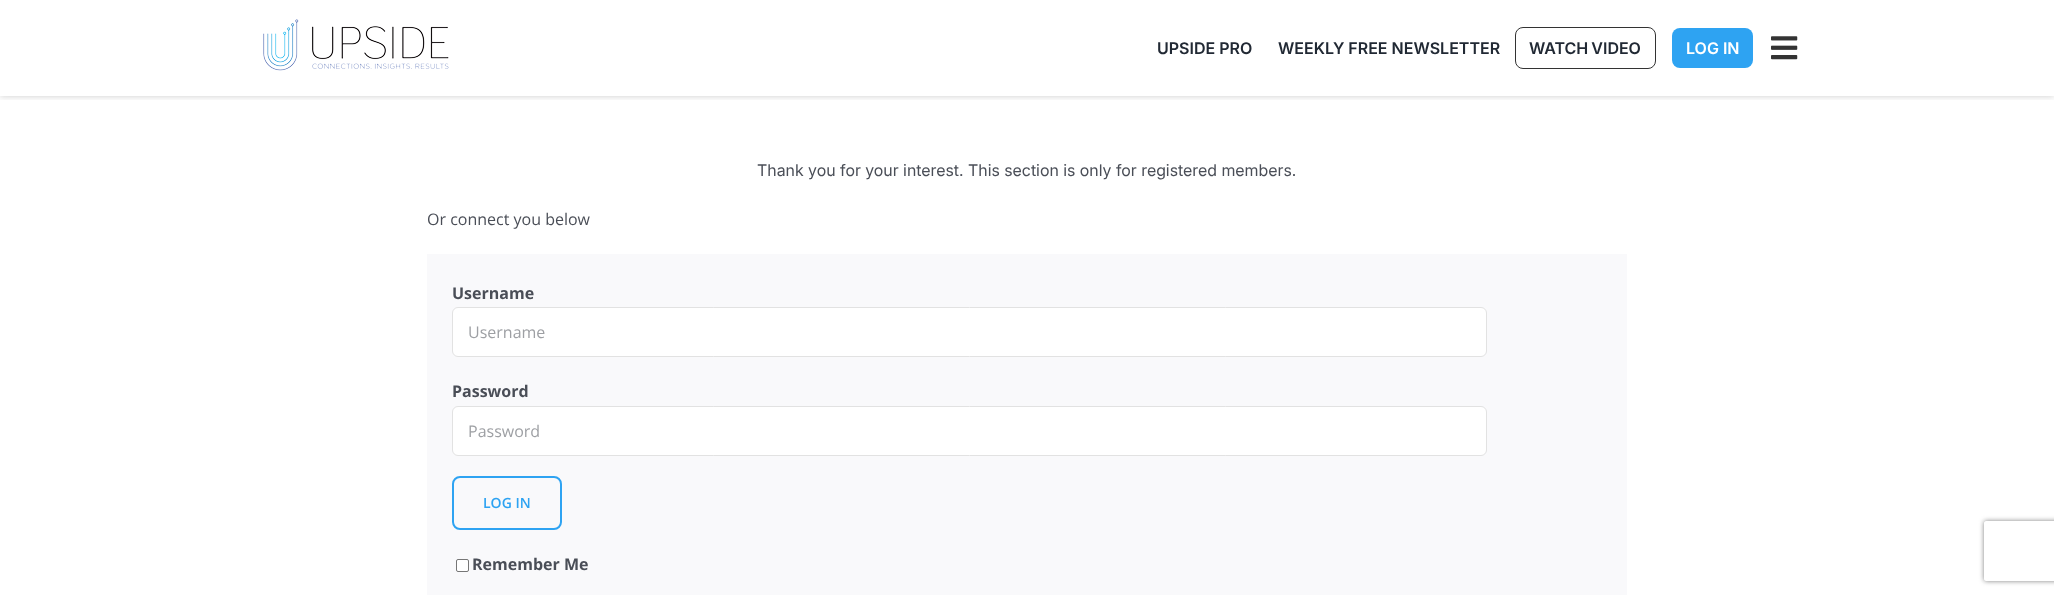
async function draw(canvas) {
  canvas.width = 2054
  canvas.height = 595
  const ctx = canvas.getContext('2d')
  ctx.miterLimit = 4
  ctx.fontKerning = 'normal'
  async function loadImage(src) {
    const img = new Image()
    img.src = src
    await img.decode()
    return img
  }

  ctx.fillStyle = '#fff'
  ctx.fillRect(0, 0, 2054, 595)
  ctx.save()
  ctx.beginPath()
  ctx.rect(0, 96, 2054, 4)
  ctx.clip()
  ctx.fillStyle = '#00000033'
  ctx.filter = 'blur(3.5px)'
  ctx.beginPath()
  ctx.rect(0, 0, 2054, 96)
  ctx.fill()
  ctx.filter = 'none'
  ctx.restore()
  ctx.drawImage(await loadImage('image0.png'), 263, 19, 186, 52)
  ctx.font = '600 16px Inter'
  ctx.fillStyle = '#212934'
  ctx.fillText('UPSIDE PRO', 1157, 54)
  ctx.fillText('WEEKLY FREE NEWSLETTER', 1278, 54)
  ctx.beginPath()
  ctx.roundRect(1515.5, 27.5, 140, 41, 7.5)
  ctx.strokeStyle = '#333'
  ctx.stroke()
  ctx.wordSpacing = '-1px'
  ctx.fillText('WATCH VIDEO', 1529, 54)
  ctx.fillStyle = '#2ea3f2'
  ctx.beginPath()
  ctx.roundRect(1672, 28, 81, 40, 8)
  ctx.fill()
  ctx.wordSpacing = '0px'
  ctx.fillStyle = '#fff'
  ctx.fillText('LOG IN', 1686, 54)
  ctx.drawImage(await loadImage('image1.png'), 1771, 36, 27, 24)
  ctx.font = '16px Inter'
  ctx.fillStyle = '#4a4e57'
  ctx.fillText('Thank you for your interest. This section is only for registered members.', 757, 176)
  ctx.font = '16px Open Sans'
  ctx.fillText('Or connect you below', 427, 225)
  ctx.fillStyle = '#f9f9fb'
  ctx.fillRect(427, 254, 1200, 341)
  ctx.font = 'bold 16px Open Sans'
  ctx.fillStyle = '#4a4e57'
  ctx.fillText('Username', 452, 299)
  ctx.fillStyle = '#fff'
  ctx.beginPath()
  ctx.roundRect(452.5, 307.5, 1034, 49, 5.5)
  ctx.fill()
  ctx.strokeStyle = '#e2e2e2'
  ctx.stroke()
  ctx.font = '16px Open Sans'
  ctx.fillStyle = '#9ea0a4'
  ctx.fillText('Username', 468, 338)
  ctx.font = 'bold 16px Open Sans'
  ctx.fillStyle = '#4a4e57'
  ctx.fillText('Password', 452, 397)
  ctx.fillStyle = '#fff'
  ctx.beginPath()
  ctx.roundRect(452.5, 406.5, 1034, 49, 5.5)
  ctx.fill()
  ctx.stroke()
  ctx.font = '16px Open Sans'
  ctx.fillStyle = '#9ea0a4'
  ctx.fillText('Password', 468, 437)
  ctx.beginPath()
  ctx.roundRect(453, 477, 108, 52, 7)
  ctx.strokeStyle = '#2ea3f2'
  ctx.lineWidth = 2
  ctx.stroke()
  ctx.font = '600 14px Open Sans'
  ctx.fillStyle = '#2ea3f2'
  ctx.fillText('LOG IN', 483, 508)
  ctx.fillStyle = '#fff'
  ctx.beginPath()
  ctx.roundRect(456.5, 559.5, 12, 12, 1.5)
  ctx.fill()
  ctx.strokeStyle = '#767676'
  ctx.lineWidth = 1
  ctx.stroke()
  ctx.font = 'bold 16px Open Sans'
  ctx.fillStyle = '#4a4e57'
  ctx.fillText('Remember Me', 472, 570)
  ctx.save()
  ctx.beginPath()
  ctx.moveTo(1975, 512)
  ctx.lineTo(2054, 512)
  ctx.lineTo(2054, 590)
  ctx.lineTo(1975, 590)
  ctx.closePath()
  ctx.moveTo(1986, 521)
  ctx.lineTo(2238, 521)
  ctx.bezierCurveTo(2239, 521, 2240, 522, 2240, 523)
  ctx.lineTo(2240, 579)
  ctx.bezierCurveTo(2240, 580, 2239, 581, 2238, 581)
  ctx.lineTo(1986, 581)
  ctx.bezierCurveTo(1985, 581, 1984, 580, 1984, 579)
  ctx.lineTo(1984, 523)
  ctx.bezierCurveTo(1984, 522, 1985, 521, 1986, 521)
  ctx.closePath()
  ctx.clip('evenodd')
  ctx.fillStyle = '#808080'
  ctx.filter = 'blur(2.5px)'
  ctx.beginPath()
  ctx.roundRect(1984, 521, 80, 60, 2)
  ctx.fill()
  ctx.filter = 'none'
  ctx.restore()
}

draw(document.querySelector('canvas'))
